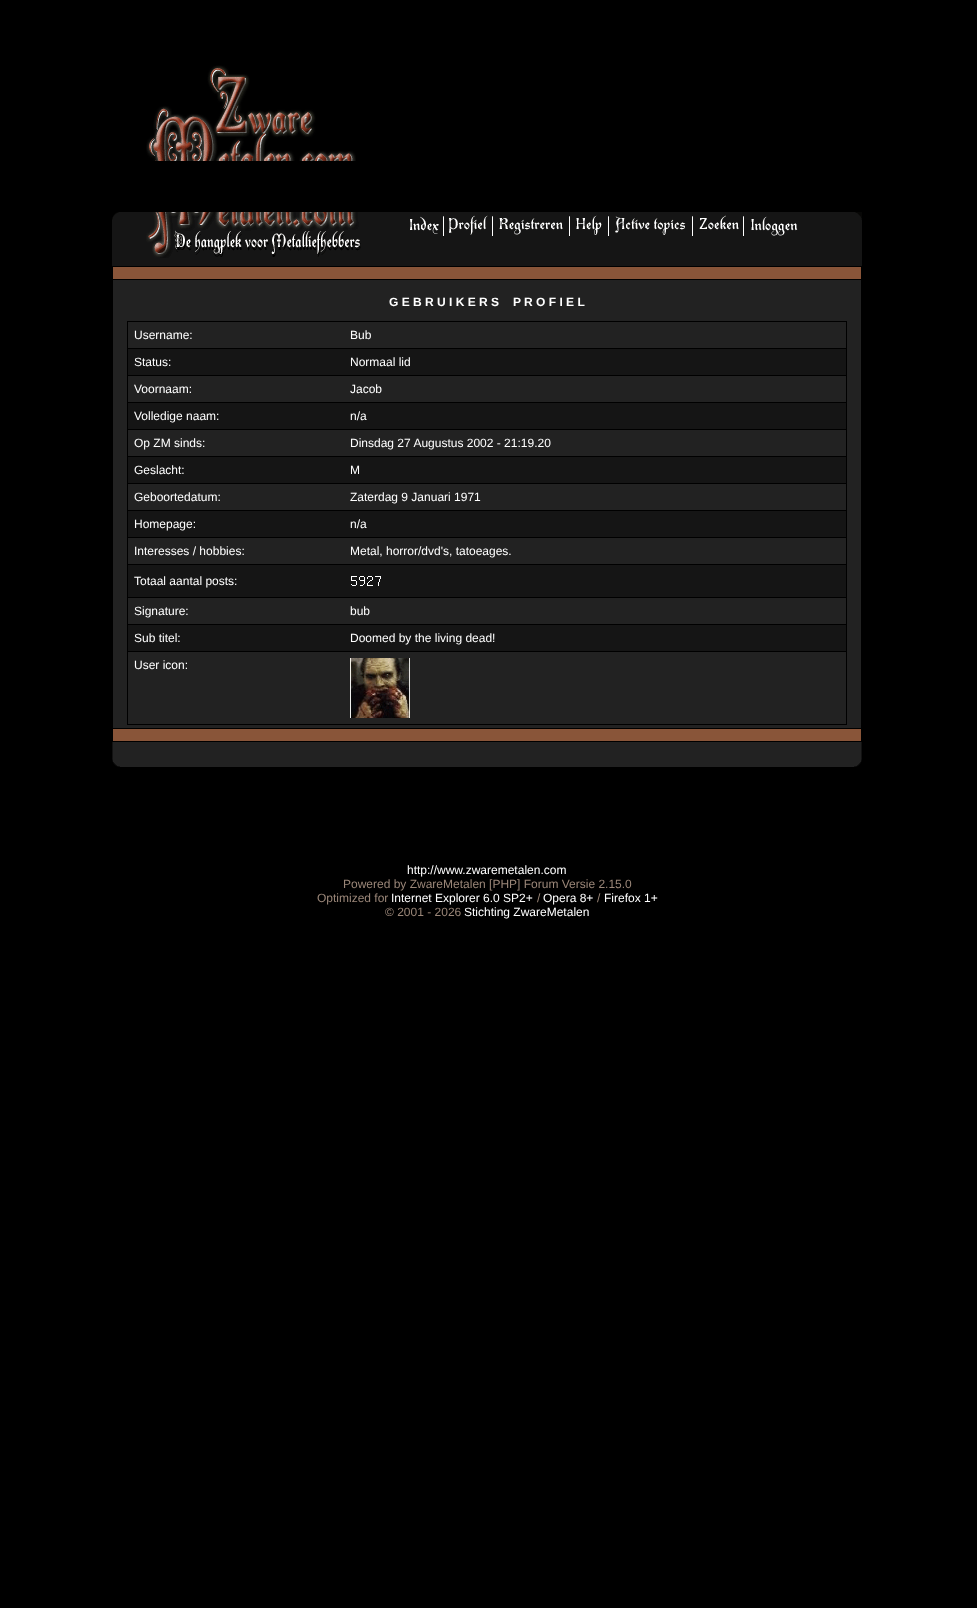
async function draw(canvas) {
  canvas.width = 977
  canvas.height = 1608
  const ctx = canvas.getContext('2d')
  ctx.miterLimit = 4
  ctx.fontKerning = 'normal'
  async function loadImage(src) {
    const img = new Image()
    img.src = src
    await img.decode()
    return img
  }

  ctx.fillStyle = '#000'
  ctx.fillRect(0, 0, 977, 1608)
  ctx.drawImage(await loadImage('image0.png'), 146, 65, 210, 96)
  ctx.fillStyle = '#151515'
  ctx.fillRect(112, 212, 750, 54)
  ctx.drawImage(await loadImage('image1.png'), 112, 212, 7, 8)
  ctx.drawImage(await loadImage('image2.png'), 146, 212, 215, 46)
  ctx.drawImage(await loadImage('image3.png'), 410, 216, 29, 18)
  ctx.drawImage(await loadImage('image4.png'), 443, 216, 1, 20)
  ctx.drawImage(await loadImage('image5.png'), 449, 215, 39, 20)
  ctx.drawImage(await loadImage('image4.png'), 492, 216, 1, 20)
  ctx.drawImage(await loadImage('image6.png'), 499, 218, 64, 17)
  ctx.drawImage(await loadImage('image4.png'), 569, 216, 1, 20)
  ctx.drawImage(await loadImage('image7.png'), 576, 215, 26, 20)
  ctx.drawImage(await loadImage('image4.png'), 608, 216, 1, 20)
  ctx.drawImage(await loadImage('image8.png'), 615, 216, 71, 19)
  ctx.drawImage(await loadImage('image4.png'), 692, 216, 1, 20)
  ctx.drawImage(await loadImage('image9.png'), 699, 215, 40, 15)
  ctx.drawImage(await loadImage('image4.png'), 743, 216, 1, 20)
  ctx.drawImage(await loadImage('image10.png'), 751, 216, 47, 20)
  ctx.drawImage(await loadImage('image11.png'), 855, 212, 7, 8)
  ctx.fillStyle = '#895539'
  ctx.fillRect(113, 267, 748, 12)
  ctx.fillStyle = '#222'
  ctx.fillRect(113, 280, 748, 448)
  ctx.font = 'bold 12px Liberation Sans'
  ctx.fillStyle = '#fff'
  ctx.fillText('G E B R U I K E R S', 389, 306)
  ctx.fillText('P R O F I E L', 513, 306)
  ctx.fillStyle = '#000'
  ctx.fillRect(127, 321, 720, 404)
  ctx.fillStyle = '#222'
  ctx.fillRect(128, 322, 718, 26)
  ctx.font = '12px Liberation Sans'
  ctx.fillStyle = '#fff'
  ctx.fillText('Username:', 134, 339)
  ctx.fillText('Bub', 350, 339)
  ctx.fillStyle = '#151515'
  ctx.fillRect(128, 349, 718, 26)
  ctx.fillStyle = '#fff'
  ctx.fillText('Status:', 134, 366)
  ctx.fillText('Normaal lid', 350, 366)
  ctx.fillStyle = '#222'
  ctx.fillRect(128, 376, 718, 26)
  ctx.fillStyle = '#fff'
  ctx.fillText('Voornaam:', 134, 393)
  ctx.fillText('Jacob', 350, 393)
  ctx.fillStyle = '#151515'
  ctx.fillRect(128, 403, 718, 26)
  ctx.fillStyle = '#fff'
  ctx.fillText('Volledige naam:', 134, 420)
  ctx.fillText('n/a', 350, 420)
  ctx.fillStyle = '#222'
  ctx.fillRect(128, 430, 718, 26)
  ctx.fillStyle = '#fff'
  ctx.fillText('Op ZM sinds:', 134, 447)
  ctx.fillText('Dinsdag 27 Augustus 2002 - 21:19.20', 350, 447)
  ctx.fillStyle = '#151515'
  ctx.fillRect(128, 457, 718, 26)
  ctx.fillStyle = '#fff'
  ctx.fillText('Geslacht:', 134, 474)
  ctx.fillText('M', 350, 474)
  ctx.fillStyle = '#222'
  ctx.fillRect(128, 484, 718, 26)
  ctx.fillStyle = '#fff'
  ctx.fillText('Geboortedatum:', 134, 501)
  ctx.fillText('Zaterdag 9 Januari 1971', 350, 501)
  ctx.fillStyle = '#151515'
  ctx.fillRect(128, 511, 718, 26)
  ctx.fillStyle = '#fff'
  ctx.fillText('Homepage:', 134, 528)
  ctx.fillText('n/a', 350, 528)
  ctx.fillStyle = '#222'
  ctx.fillRect(128, 538, 718, 26)
  ctx.fillStyle = '#fff'
  ctx.fillText('Interesses / hobbies:', 134, 555)
  ctx.fillText('Metal, horror/dvd\'s, tatoeages.', 350, 555)
  ctx.fillStyle = '#151515'
  ctx.fillRect(128, 565, 718, 32)
  ctx.fillStyle = '#fff'
  ctx.fillText('Totaal aantal posts:', 134, 585)
  ctx.drawImage(await loadImage('image12.png'), 351, 576, 30, 10)
  ctx.fillStyle = '#222'
  ctx.fillRect(128, 598, 718, 26)
  ctx.fillStyle = '#fff'
  ctx.fillText('Signature:', 134, 615)
  ctx.fillText('bub', 350, 615)
  ctx.fillStyle = '#151515'
  ctx.fillRect(128, 625, 718, 26)
  ctx.fillStyle = '#fff'
  ctx.fillText('Sub titel:', 134, 642)
  ctx.fillText('Doomed by the living dead!', 350, 642)
  ctx.fillStyle = '#222'
  ctx.fillRect(128, 652, 718, 72)
  ctx.fillStyle = '#fff'
  ctx.fillText('User icon:', 134, 669)
  ctx.drawImage(await loadImage('image13.png'), 350, 658, 60, 60)
  ctx.fillStyle = '#895539'
  ctx.fillRect(113, 729, 748, 12)
  ctx.fillStyle = '#222'
  ctx.fillRect(113, 742, 748, 25)
  ctx.drawImage(await loadImage('image14.png'), 112, 742, 8, 25)
  ctx.drawImage(await loadImage('image15.png'), 854, 742, 8, 25)
  ctx.fillStyle = '#fff'
  ctx.fillText('http://www.zwaremetalen.com', 407, 874)
  ctx.fillStyle = '#9a8678'
  ctx.fillText('Powered by ZwareMetalen [PHP] Forum Versie 2.15.0', 343, 888)
  ctx.fillText('Optimized for', 317, 902)
  ctx.fillStyle = '#fff'
  ctx.fillText('Internet Explorer 6.0 SP2+', 391, 902)
  ctx.fillStyle = '#9a8678'
  ctx.fillText('/', 537, 902)
  ctx.fillStyle = '#fff'
  ctx.fillText('Opera 8+', 543, 902)
  ctx.fillStyle = '#9a8678'
  ctx.fillText('/', 597, 902)
  ctx.fillStyle = '#fff'
  ctx.fillText('Firefox 1+', 604, 902)
  ctx.fillStyle = '#9a8678'
  ctx.fillText('© 2001 - 2026', 385, 916)
  ctx.fillStyle = '#fff'
  ctx.fillText('Stichting ZwareMetalen', 464, 916)
}

draw(document.querySelector('canvas'))
